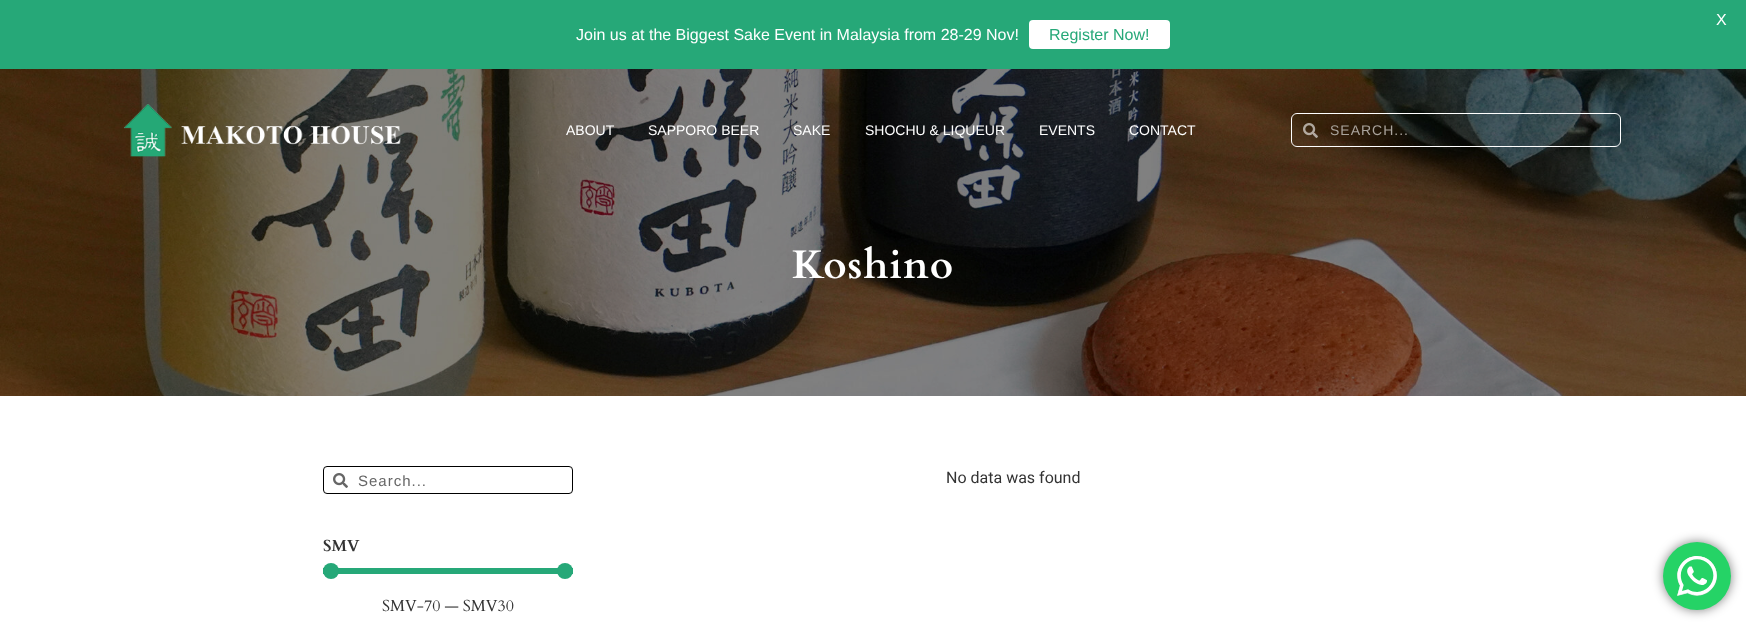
async function draw(canvas) {
  canvas.width = 1746
  canvas.height = 625
  const ctx = canvas.getContext('2d')
  ctx.miterLimit = 4
  ctx.fontKerning = 'normal'
  async function loadImage(src) {
    const img = new Image()
    img.src = src
    await img.decode()
    return img
  }

  ctx.fillStyle = '#fff'
  ctx.fillRect(0, 0, 1746, 625)
  ctx.fillStyle = '#26a878'
  ctx.fillRect(0, 0, 1746, 69)
  ctx.font = '16px Arimo'
  ctx.fillStyle = '#fff'
  ctx.fillText('X', 1716, 25)
  ctx.fillText('Join us at the Biggest Sake Event in Malaysia from 28-29 Nov!', 576, 40)
  ctx.beginPath()
  ctx.roundRect(1029, 20, 141, 29, 4)
  ctx.fill()
  ctx.fillStyle = '#26a878'
  ctx.fillText('Register Now!', 1049, 40)
  ctx.drawImage(await loadImage('image0.png'), 0, 69, 1746, 327)
  ctx.drawImage(await loadImage('image1.png'), 124, 104, 277, 53)
  ctx.font = '14px Arimo'
  ctx.fillStyle = '#fff'
  ctx.fillText('ABOUT', 566, 135)
  ctx.fillText('SAPPORO BEER', 648, 135)
  ctx.fillText('SAKE', 793, 135)
  ctx.fillText('SHOCHU & LIQUEUR', 865, 135)
  ctx.fillText('EVENTS', 1039, 135)
  ctx.fillText('CONTACT', 1129, 135)
  ctx.beginPath()
  ctx.roundRect(1291.5, 113.5, 329, 33, 5.5)
  ctx.strokeStyle = '#fff'
  ctx.stroke()
  ctx.drawImage(await loadImage('image2.png'), 1303, 123, 15, 15)
  ctx.letterSpacing = '1px'
  ctx.fillStyle = '#a9a39c'
  ctx.fillText('SEARCH...', 1330, 135)
  ctx.font = 'bold 40px Cardo'
  ctx.fillStyle = '#fff'
  ctx.fillText('Koshino', 792, 278)
  ctx.beginPath()
  ctx.roundRect(323.5, 466.5, 249, 27, 3.5)
  ctx.strokeStyle = '#000'
  ctx.stroke()
  ctx.drawImage(await loadImage('image3.png'), 333, 473, 15, 15)
  ctx.font = '15px Arimo'
  ctx.fillStyle = '#666'
  ctx.fillText('Search...', 358, 486)
  ctx.letterSpacing = '0px'
  ctx.font = 'bold 16px Cardo'
  ctx.fillStyle = '#333'
  ctx.fillText('SMV', 323, 551)
  ctx.fillStyle = '#26a878'
  ctx.fillRect(323, 568, 250, 6)
  ctx.beginPath()
  ctx.arc(331, 571, 8, 0, 2 * Math.PI)
  ctx.fill()
  ctx.beginPath()
  ctx.arc(565, 571, 8, 0, 2 * Math.PI)
  ctx.fill()
  ctx.font = '16px Cardo'
  ctx.fillStyle = '#333'
  ctx.fillText('SMV-70 — SMV30', 382, 611)
  ctx.font = '16px Roboto'
  ctx.fillText('No data was found', 946, 483)
  ctx.fillStyle = '#00000080'
  ctx.filter = 'blur(5.5px)'
  ctx.beginPath()
  ctx.roundRect(1663, 542, 68, 68, 34)
  ctx.fill()
  ctx.filter = 'none'
  ctx.fillStyle = '#25d366'
  ctx.beginPath()
  ctx.arc(1697, 576, 34, 0, 2 * Math.PI)
  ctx.fill()
  ctx.drawImage(await loadImage('image4.png'), 1677, 556, 40, 40)
}

draw(document.querySelector('canvas'))
